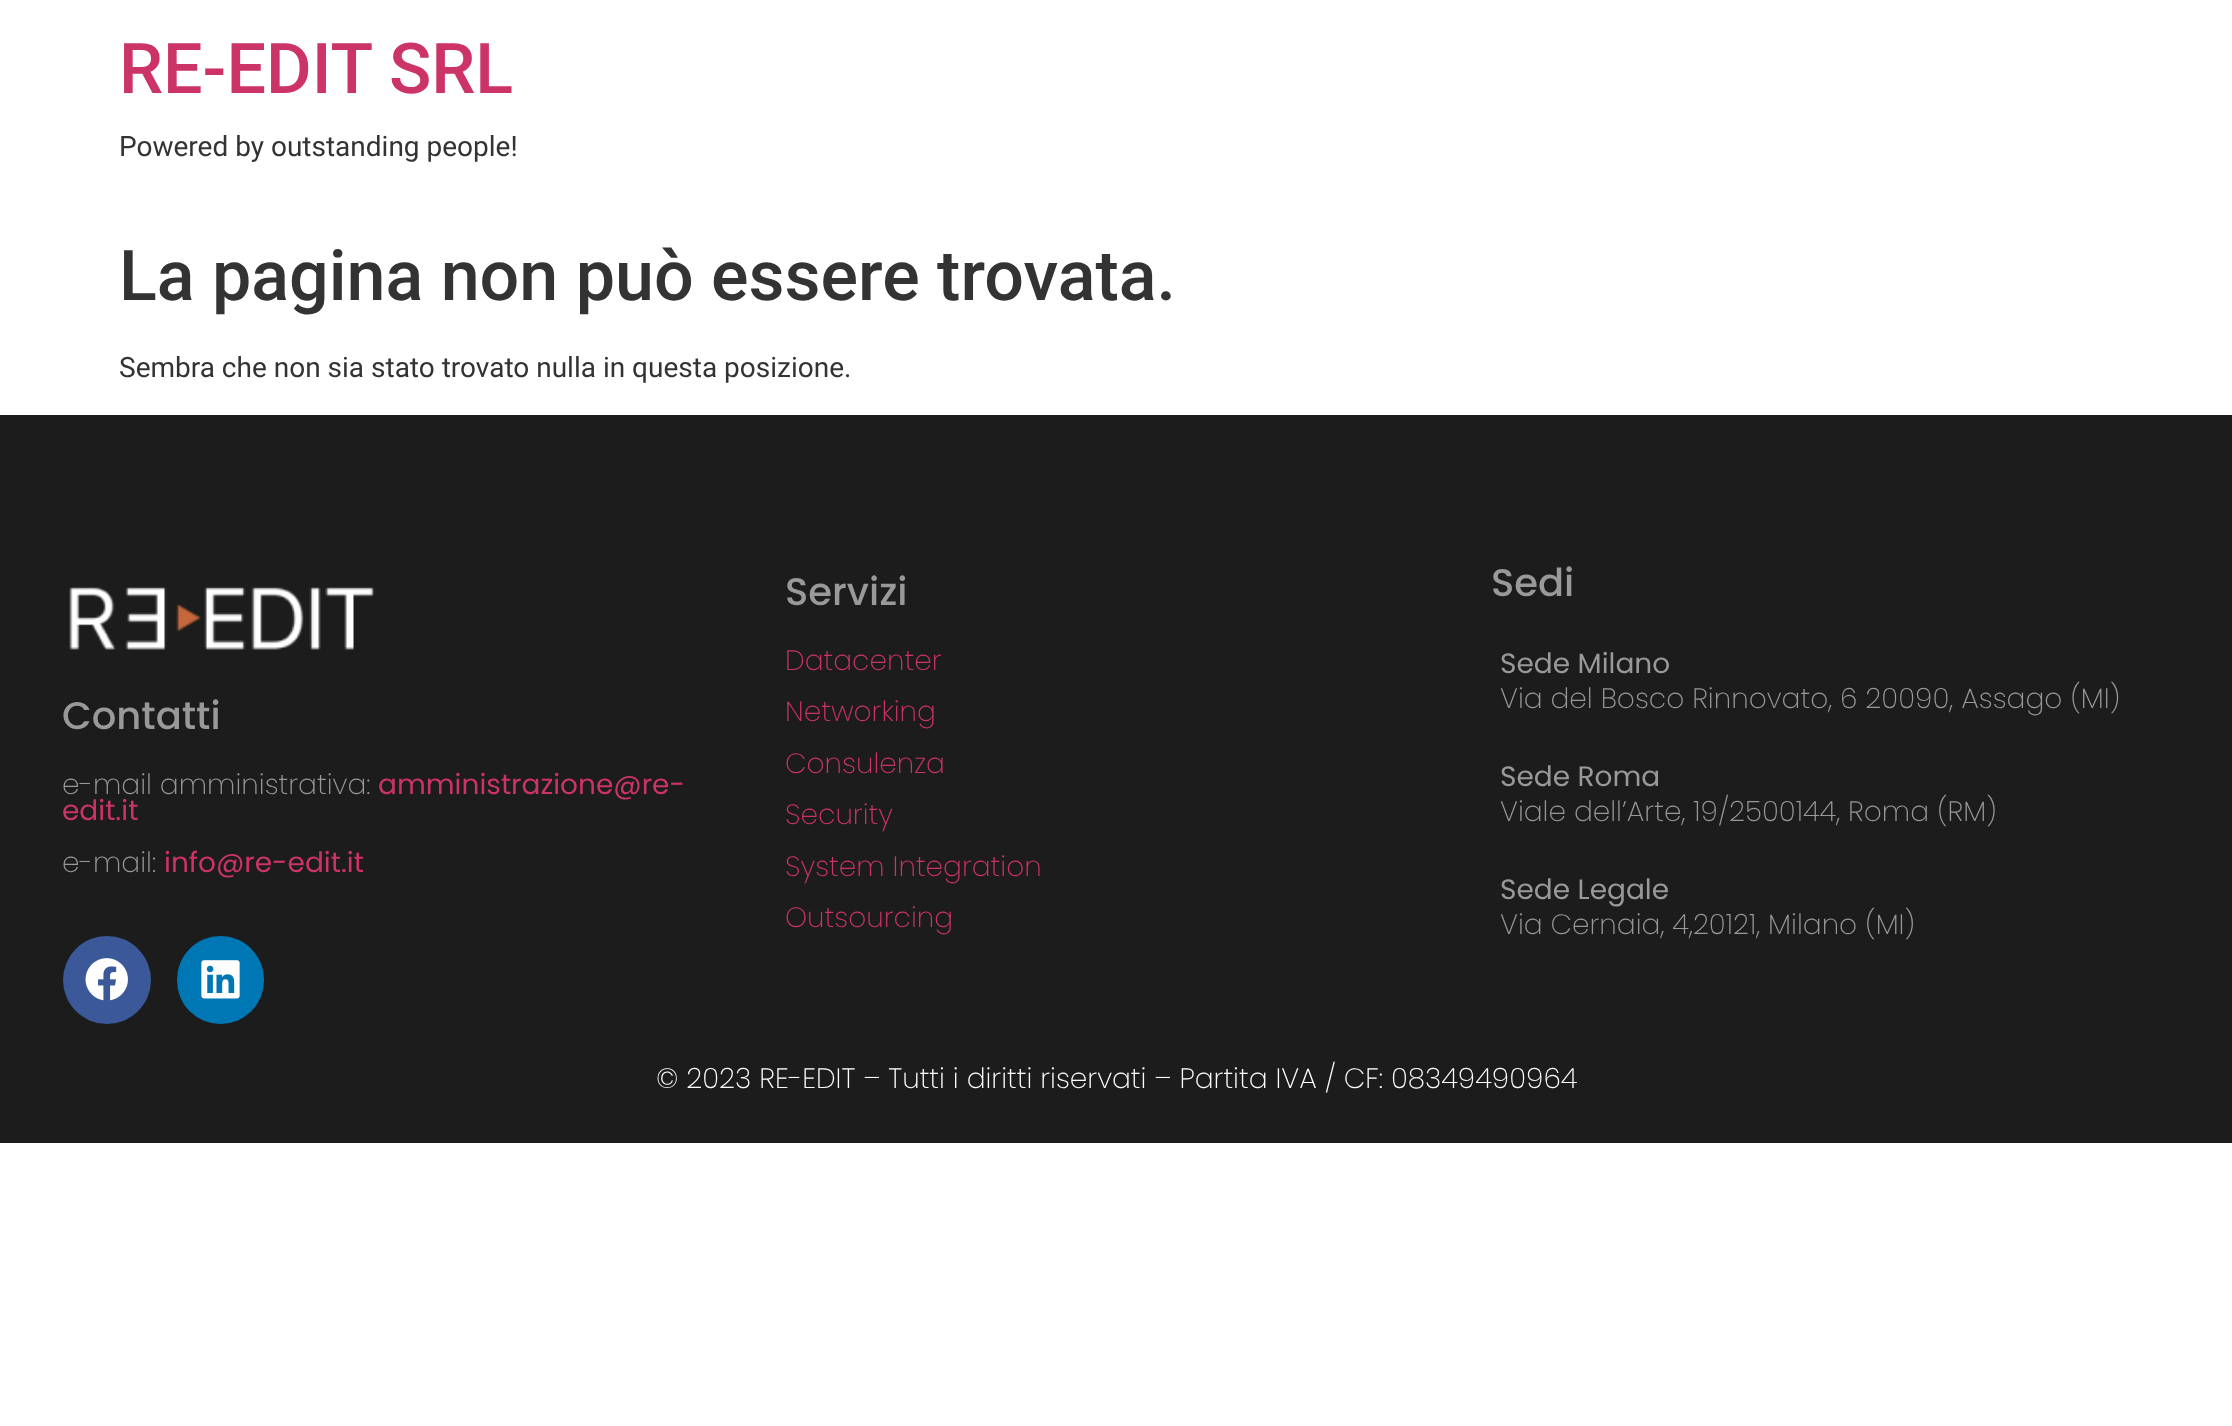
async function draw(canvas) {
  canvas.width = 2232
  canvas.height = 1426
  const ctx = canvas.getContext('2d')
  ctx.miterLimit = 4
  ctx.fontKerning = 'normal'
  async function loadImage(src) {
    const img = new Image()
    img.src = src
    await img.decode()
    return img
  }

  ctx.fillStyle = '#fff'
  ctx.fillRect(0, 0, 2232, 1426)
  ctx.font = '500 70px Roboto'
  ctx.fillStyle = '#c36'
  ctx.fillText('RE-EDIT SRL', 119, 93)
  ctx.font = '28px Roboto'
  ctx.fillStyle = '#333'
  ctx.fillText('Powered by outstanding people!', 119, 156)
  ctx.font = '500 70px Roboto'
  ctx.fillText('La pagina non può essere trovata.', 119, 300)
  ctx.font = '28px Roboto'
  ctx.fillText('Sembra che non sia stato trovato nulla in questa posizione.', 119, 377)
  ctx.fillStyle = '#1c1c1c'
  ctx.fillRect(0, 415, 2232, 728)
  ctx.drawImage(await loadImage('image0.png'), 69, 587, 306, 63)
  ctx.font = '500 38.5px Poppins'
  ctx.fillStyle = '#999'
  ctx.fillText('Contatti', 62, 729)
  ctx.font = '200 28px Poppins'
  ctx.fillText('e-mail amministrativa:', 62, 794)
  ctx.font = '28px Poppins'
  ctx.fillStyle = '#c36'
  ctx.fillText('amministrazione@re-', 378, 794)
  ctx.fillText('edit.it', 62, 820)
  ctx.font = '200 28px Poppins'
  ctx.fillStyle = '#999'
  ctx.fillText('e-mail:', 62, 872)
  ctx.font = '28px Poppins'
  ctx.fillStyle = '#c36'
  ctx.fillText('info@re-edit.it', 164, 872)
  ctx.fillStyle = '#3b5998'
  ctx.beginPath()
  ctx.arc(107, 980, 44, 0, 2 * Math.PI)
  ctx.fill()
  ctx.drawImage(await loadImage('image1.png'), 85, 958, 43, 43)
  ctx.fillStyle = '#0077b5'
  ctx.beginPath()
  ctx.roundRect(177, 936, 87, 88, 43.5)
  ctx.fill()
  ctx.drawImage(await loadImage('image2.png'), 201, 960, 39, 39)
  ctx.font = '500 38.5px Poppins'
  ctx.fillStyle = '#999'
  ctx.fillText('Servizi', 785, 605)
  ctx.font = '200 28px Poppins'
  ctx.fillStyle = '#c36'
  ctx.fillText('Datacenter', 785, 670)
  ctx.fillText('Networking', 785, 721)
  ctx.fillText('Consulenza', 785, 773)
  ctx.fillText('Security', 785, 824)
  ctx.fillText('System Integration', 785, 876)
  ctx.fillText('Outsourcing', 785, 927)
  ctx.font = '500 38.5px Poppins'
  ctx.fillStyle = '#999'
  ctx.fillText('Sedi', 1491, 596)
  ctx.font = '28px Poppins'
  ctx.fillText('Sede Milano', 1500, 673)
  ctx.font = '200 28px Poppins'
  ctx.fillText('Via del Bosco Rinnovato, 6 20090, Assago (MI)', 1500, 708)
  ctx.font = '28px Poppins'
  ctx.fillText('Sede Roma', 1500, 786)
  ctx.font = '200 28px Poppins'
  ctx.fillText('Viale dell’Arte, 19/2500144, Roma (RM)', 1500, 821)
  ctx.font = '28px Poppins'
  ctx.fillText('Sede Legale', 1500, 899)
  ctx.font = '200 28px Poppins'
  ctx.fillText('Via Cernaia, 4,20121, Milano (MI)', 1500, 934)
  ctx.fillStyle = '#fff'
  ctx.fillText('© 2023 RE-EDIT – Tutti i diritti riservati – Partita IVA / CF: 08349490964', 656, 1088)
}

draw(document.querySelector('canvas'))
